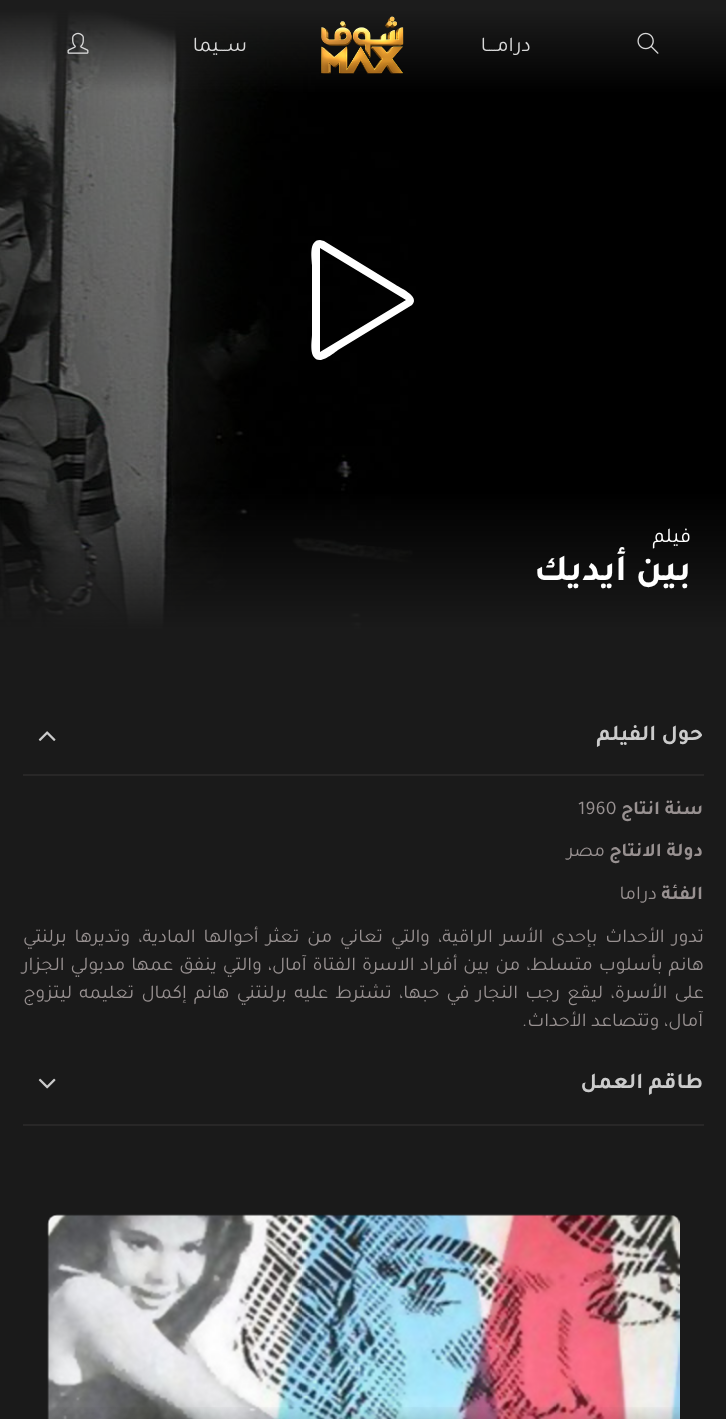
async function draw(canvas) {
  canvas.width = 726
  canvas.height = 1419
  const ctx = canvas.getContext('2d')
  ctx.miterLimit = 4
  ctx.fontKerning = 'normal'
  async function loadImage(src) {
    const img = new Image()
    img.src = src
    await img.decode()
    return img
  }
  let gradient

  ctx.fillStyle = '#1a1a1a'
  ctx.fillRect(0, 0, 726, 1419)
  ctx.drawImage(await loadImage('image3.png'), 0, 0, 726, 630)
  ctx.drawImage(await loadImage('image0.png'), 637, 32, 22, 22)
  ctx.direction = 'rtl'
  ctx.font = '21px Tajawal'
  ctx.fillStyle = '#d9d9d9'
  ctx.fillText('درامــــا', 531, 51)
  ctx.drawImage(await loadImage('image1.png'), 321, 16, 83, 58)
  ctx.fillText('ســـيما', 247, 51)
  ctx.drawImage(await loadImage('image2.png'), 67, 32, 22, 22)
  ctx.fillStyle = '#fff'
  ctx.beginPath()
  ctx.moveTo(320, 248)
  ctx.lineTo(406, 300)
  ctx.lineTo(320, 352)
  ctx.closePath()
  ctx.moveTo(320, 240)
  ctx.bezierCurveTo(308, 240, 312, 260, 312, 265)
  ctx.lineTo(312, 335)
  ctx.bezierCurveTo(312, 340, 308, 360, 320, 360)
  ctx.bezierCurveTo(326, 360, 338, 350, 338, 350)
  ctx.lineTo(412, 305)
  ctx.bezierCurveTo(421, 296, 398, 287, 396, 285)
  ctx.lineTo(324, 241)
  ctx.closePath()
  ctx.fill()
  ctx.fillText('فيلم', 691, 542)
  ctx.font = 'bold 37.5px Tajawal'
  ctx.fillText('بين أيديك', 691, 580)
  ctx.fillStyle = '#282727'
  ctx.fillRect(23, 774, 681, 2)
  ctx.font = 'bold 22.5px Tajawal'
  ctx.fillStyle = '#cbcbcb'
  ctx.fillText('حول الفيلم', 703, 740)
  ctx.drawImage(await loadImage('image4.png'), 38, 731, 18, 10)
  ctx.font = 'bold 19.5px Tajawal'
  ctx.fillStyle = '#989191'
  ctx.fillText('سنة انتاج', 703, 814)
  ctx.direction = 'ltr'
  ctx.font = '19.5px Tajawal'
  ctx.fillText('1960', 578, 814)
  ctx.direction = 'rtl'
  ctx.font = 'bold 19.5px Tajawal'
  ctx.fillText('دولة الانتاج', 703, 856)
  ctx.font = '19.5px Tajawal'
  ctx.fillText('مصر', 605, 856)
  ctx.font = 'bold 19.5px Tajawal'
  ctx.fillText('الفئة', 703, 899)
  ctx.font = '19.5px Tajawal'
  ctx.fillText('دراما', 657, 899)
  ctx.wordSpacing = '3.25px'
  ctx.fillText('تدور الأحداث بإحدى الأسر الراقية، والتي تعاني من تعثر أحوالها المادية، وتديرها برلنتي', 704, 942)
  ctx.wordSpacing = '1.2px'
  ctx.fillText('هانم بأسلوب متسلط، من بين أفراد الاسرة الفتاة آمال، والتي ينفق عمها مدبولي الجزار', 704, 970)
  ctx.wordSpacing = '2.5px'
  ctx.fillText('على الأسرة، ليقع رجب النجار في حبها، تشترط عليه برلنتني هانم إكمال تعليمه ليتزوج', 704, 998)
  ctx.wordSpacing = '0px'
  ctx.fillText('آمال، وتتصاعد الأحداث.', 703, 1026)
  ctx.fillStyle = '#282727'
  ctx.fillRect(23, 1124, 681, 2)
  ctx.font = 'bold 22.5px Tajawal'
  ctx.fillStyle = '#cbcbcb'
  ctx.fillText('طاقم العمل', 703, 1088)
  ctx.drawImage(await loadImage('image5.png'), 38, 1078, 18, 11)
  ctx.drawImage(await loadImage('image6.png'), 47, 1214, 633, 205)
  gradient = ctx.createLinearGradient(364, 1215, 364, 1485)
  gradient.addColorStop(0.7, '#00000000')
  gradient.addColorStop(1, '#00000099')
  ctx.fillStyle = gradient
  ctx.fillRect(48, 1407, 632, 12)
}

draw(document.querySelector('canvas'))
